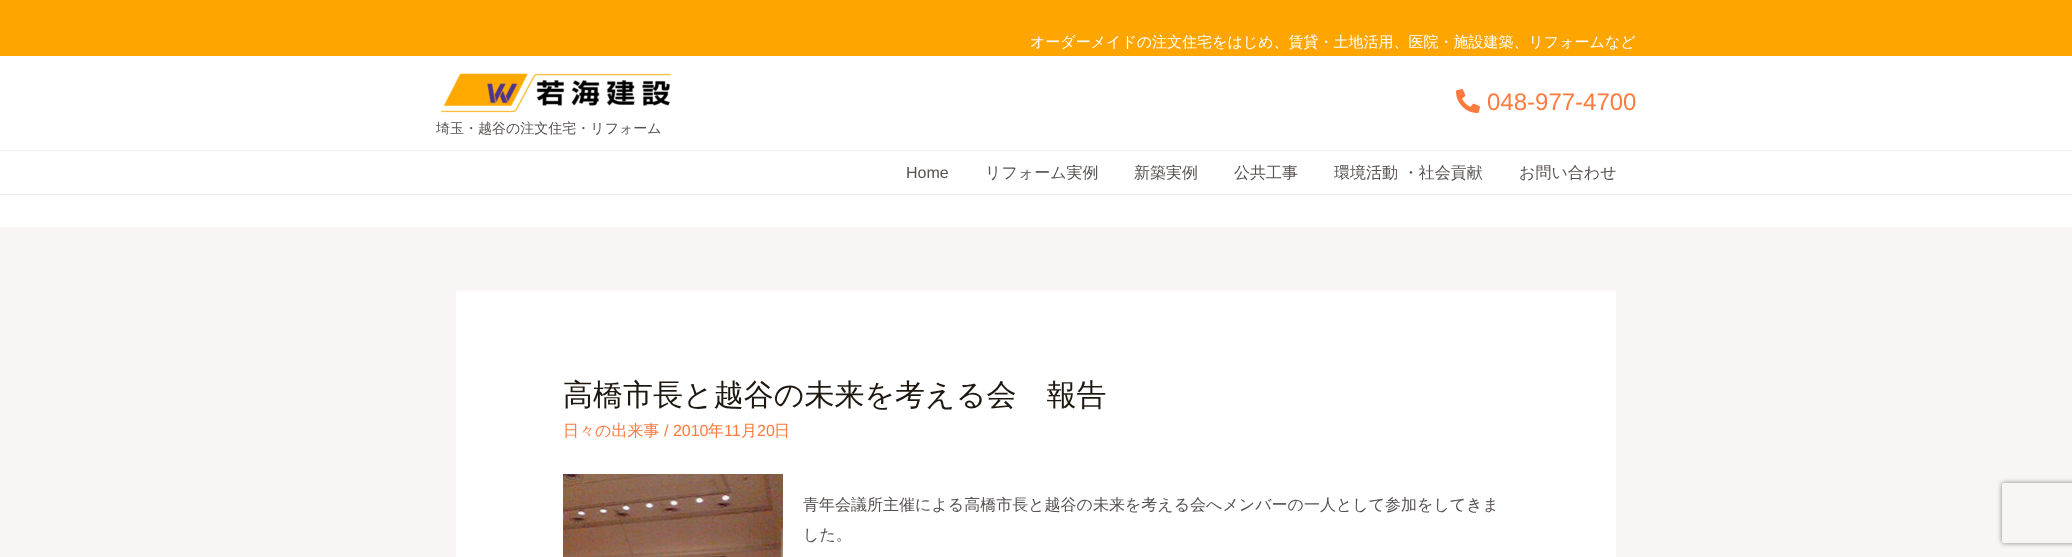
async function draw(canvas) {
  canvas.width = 2072
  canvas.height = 557
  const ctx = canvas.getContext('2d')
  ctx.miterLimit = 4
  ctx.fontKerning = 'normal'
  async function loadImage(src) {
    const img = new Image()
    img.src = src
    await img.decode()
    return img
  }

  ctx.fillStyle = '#f8f5f4'
  ctx.fillRect(0, 0, 2072, 557)
  ctx.fillStyle = '#ffa500'
  ctx.fillRect(0, 0, 2072, 56)
  ctx.font = '500 15px WenQuanYi Zen Hei'
  ctx.fillStyle = '#fff'
  ctx.fillText('オーダーメイドの注文住宅をはじめ、賃貸・土地活用、医院・施設建築、リフォームなど', 1030, 47)
  ctx.fillRect(0, 56, 2072, 94)
  ctx.fillStyle = '#eee'
  ctx.fillRect(0, 150, 2072, 1)
  ctx.drawImage(await loadImage('image0.png'), 1456, 89, 24, 24)
  ctx.font = '24px Liberation Sans'
  ctx.fillStyle = '#ff7a3d'
  ctx.fillText('048-977-4700', 1487, 110)
  ctx.drawImage(await loadImage('image1.png'), 440, 73, 231, 40)
  ctx.font = '500 14px WenQuanYi Zen Hei'
  ctx.fillStyle = '#575250'
  ctx.fillText('埼玉・越谷の注文住宅・リフォーム', 436, 133)
  ctx.fillStyle = '#fff'
  ctx.fillRect(0, 151, 2072, 43)
  ctx.fillStyle = '#eaeaea'
  ctx.fillRect(0, 194, 2072, 1)
  ctx.font = '16px Liberation Sans'
  ctx.fillStyle = '#575250'
  ctx.fillText('Home', 906, 178)
  ctx.font = '500 16px WenQuanYi Zen Hei'
  ctx.fillText('リフォーム実例', 985, 178)
  ctx.fillText('新築実例', 1134, 178)
  ctx.fillText('公共工事', 1234, 178)
  ctx.fillText('環境活動 ・社会貢献', 1334, 178)
  ctx.fillText('お問い合わせ', 1519, 178)
  ctx.fillStyle = '#fff'
  ctx.fillRect(0, 195, 2072, 32)
  ctx.fillRect(456, 291, 1160, 266)
  ctx.font = '500 30px WenQuanYi Zen Hei'
  ctx.fillStyle = '#1e1810'
  ctx.fillText('高橋市長と越谷の未来を考える会　報告', 563, 405)
  ctx.font = '500 16px WenQuanYi Zen Hei'
  ctx.fillStyle = '#ff7a3d'
  ctx.fillText('日々の出来事', 563, 436)
  ctx.font = '16px Liberation Sans'
  ctx.fillText('/ 2010', 664, 436)
  ctx.font = '500 16px WenQuanYi Zen Hei'
  ctx.fillText('年', 708, 436)
  ctx.font = '16px Liberation Sans'
  ctx.fillText('11', 724, 436)
  ctx.font = '500 16px WenQuanYi Zen Hei'
  ctx.fillText('月', 741, 436)
  ctx.font = '16px Liberation Sans'
  ctx.fillText('20', 757, 436)
  ctx.font = '500 16px WenQuanYi Zen Hei'
  ctx.fillText('日', 774, 436)
  ctx.drawImage(await loadImage('image2.png'), 563, 474, 220, 83)
  ctx.fillStyle = '#575250'
  ctx.fillText('青年会議所主催による高橋市長と越谷の未来を考える会へメンバーの一人として参加をしてきま', 803, 510)
  ctx.fillText('した。', 803, 540)
  ctx.save()
  ctx.beginPath()
  ctx.moveTo(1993, 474)
  ctx.lineTo(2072, 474)
  ctx.lineTo(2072, 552)
  ctx.lineTo(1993, 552)
  ctx.closePath()
  ctx.moveTo(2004, 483)
  ctx.lineTo(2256, 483)
  ctx.bezierCurveTo(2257, 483, 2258, 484, 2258, 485)
  ctx.lineTo(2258, 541)
  ctx.bezierCurveTo(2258, 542, 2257, 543, 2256, 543)
  ctx.lineTo(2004, 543)
  ctx.bezierCurveTo(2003, 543, 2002, 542, 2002, 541)
  ctx.lineTo(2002, 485)
  ctx.bezierCurveTo(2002, 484, 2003, 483, 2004, 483)
  ctx.closePath()
  ctx.clip('evenodd')
  ctx.fillStyle = '#808080'
  ctx.filter = 'blur(2.5px)'
  ctx.beginPath()
  ctx.roundRect(2002, 483, 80, 60, 2)
  ctx.fill()
  ctx.filter = 'none'
  ctx.restore()
}

draw(document.querySelector('canvas'))
